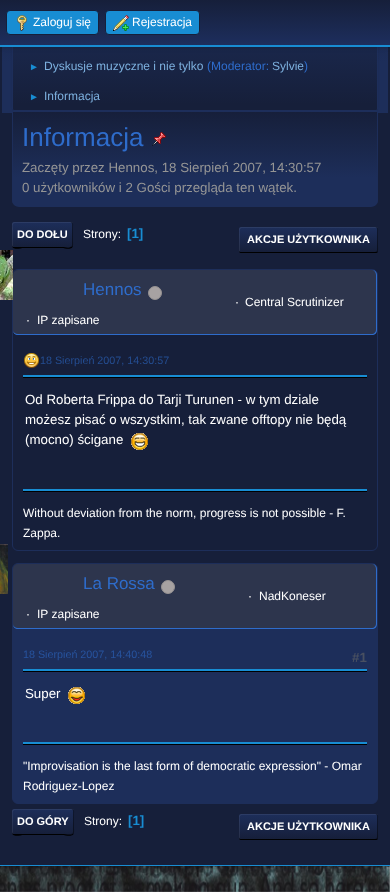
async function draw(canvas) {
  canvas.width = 390
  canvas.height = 892
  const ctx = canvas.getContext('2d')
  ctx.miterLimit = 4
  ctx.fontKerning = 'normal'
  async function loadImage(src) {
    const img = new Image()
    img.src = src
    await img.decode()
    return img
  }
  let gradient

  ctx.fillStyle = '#fff'
  ctx.fillRect(0, 0, 390, 892)
  ctx.drawImage(await loadImage('image0.png'), 0, 866, 390, 26)
  ctx.fillStyle = '#00000024'
  ctx.filter = 'blur(1.5px)'
  ctx.beginPath()
  ctx.rect(0, -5, 390, 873)
  ctx.fill()
  ctx.filter = 'none'
  ctx.fillStyle = '#161f3a'
  ctx.fillRect(0, 47, 390, 818)
  gradient = ctx.createLinearGradient(195, -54, 195, 113)
  gradient.addColorStop(0, '#161f3a')
  gradient.addColorStop(0.7, '#1d2e5a')
  ctx.fillStyle = gradient
  ctx.fillRect(2, 47, 386, 66)
  ctx.fillStyle = '#00000014'
  ctx.filter = 'blur(1px)'
  ctx.beginPath()
  ctx.roundRect(12, -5, 366, 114, 2)
  ctx.fill()
  ctx.filter = 'none'
  gradient = ctx.createLinearGradient(195, -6, 195, 110)
  gradient.addColorStop(0, '#1d2e5a')
  gradient.addColorStop(0.95, '#161f3a')
  ctx.fillStyle = gradient
  ctx.fillRect(12, 47, 366, 63)
  ctx.beginPath()
  ctx.roundRect(12.5, -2.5, 365, 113, 1.5)
  ctx.strokeStyle = '#1d2e5a'
  ctx.stroke()
  ctx.fillStyle = '#00000029'
  ctx.filter = 'blur(2px)'
  ctx.beginPath()
  ctx.rect(0, 1, 390, 47)
  ctx.fill()
  ctx.filter = 'none'
  gradient = ctx.createLinearGradient(195, 0, 195, 45)
  gradient.addColorStop(0, '#161f3a')
  gradient.addColorStop(1, '#1d2e5d')
  ctx.fillStyle = gradient
  ctx.fillRect(0, 0, 390, 45)
  ctx.fillStyle = '#188dd3'
  ctx.fillRect(0, 45, 390, 2)
  ctx.beginPath()
  ctx.roundRect(6.5, 10.5, 92, 24, 3.5)
  ctx.fill()
  ctx.strokeStyle = '#161f3a'
  ctx.stroke()
  ctx.drawImage(await loadImage('image1.png'), 17, 15, 10, 16)
  ctx.font = '12px Liberation Sans'
  ctx.fillStyle = '#fff'
  ctx.fillText('Zaloguj się', 33, 26)
  ctx.fillStyle = '#188dd3'
  ctx.beginPath()
  ctx.roundRect(105.5, 10.5, 94, 24, 3.5)
  ctx.fill()
  ctx.stroke()
  ctx.drawImage(await loadImage('image2.png'), 113, 15, 16, 16)
  ctx.fillStyle = '#fff'
  ctx.fillText('Rejestracja', 132, 26)
  ctx.fillStyle = '#188dd3'
  ctx.fillRect(0, 865, 390, 1)
  ctx.font = '10px Liberation Sans'
  ctx.fillText('►', 29, 70)
  ctx.font = '12px Liberation Sans'
  ctx.fillStyle = '#7db0de'
  ctx.fillText('Dyskusje muzyczne i nie tylko', 44, 70)
  ctx.fillStyle = '#2e6ccb'
  ctx.fillText('(Moderator:', 207, 70)
  ctx.fillStyle = '#7db0de'
  ctx.fillText('Sylvie', 272, 70)
  ctx.fillStyle = '#2e6ccb'
  ctx.fillText(')', 304, 70)
  ctx.font = '10px Liberation Sans'
  ctx.fillStyle = '#188dd3'
  ctx.fillText('►', 29, 100)
  ctx.font = '12px Liberation Sans'
  ctx.fillStyle = '#7db0de'
  ctx.fillText('Informacja', 44, 100)
  ctx.save()
  ctx.beginPath()
  ctx.roundRect(12, 111, 366, 96, [0, 0, 7, 7])
  ctx.clip()
  gradient = ctx.createLinearGradient(195, 112, 195, 206)
  gradient.addColorStop(0, '#161f3a')
  gradient.addColorStop(0.7, '#1d2e5a')
  ctx.fillStyle = gradient
  ctx.fillRect(12, 112, 366, 94)
  ctx.restore()
  ctx.beginPath()
  ctx.roundRect(12.5, 111.5, 365, 95, [0, 0, 6.5, 6.5])
  ctx.strokeStyle = '#1d2e5a'
  ctx.stroke()
  ctx.font = '26px Liberation Sans'
  ctx.fillStyle = '#2e6ccb'
  ctx.fillText('Informacja', 22, 146)
  ctx.drawImage(await loadImage('image3.png'), 152, 132, 14, 14)
  ctx.font = '13.3px Liberation Sans'
  ctx.fillStyle = '#959595'
  ctx.fillText('Zaczęty przez Hennos, 18 Sierpień 2007, 14:30:57', 22, 172)
  ctx.fillText('0 użytkowników i 2 Gości przegląda ten wątek.', 22, 192)
  ctx.fillStyle = '#000'
  ctx.beginPath()
  ctx.moveTo(12, 245)
  ctx.bezierCurveTo(12, 251, 20, 248, 24, 248)
  ctx.lineTo(62, 248)
  ctx.bezierCurveTo(65, 248, 73, 251, 73, 245)
  ctx.lineTo(72, 246)
  ctx.bezierCurveTo(70, 249, 65, 247, 62, 247)
  ctx.lineTo(13, 247)
  ctx.closePath()
  ctx.fill()
  gradient = ctx.createLinearGradient(43, 222, 43, 247)
  gradient.addColorStop(0, '#1d2e5a')
  gradient.addColorStop(1, '#161f3a')
  ctx.fillStyle = gradient
  ctx.beginPath()
  ctx.roundRect(12, 222, 61, 25, 2)
  ctx.fill()
  ctx.fillStyle = '#00000078'
  ctx.beginPath()
  ctx.moveTo(70, 247)
  ctx.bezierCurveTo(74, 247, 73, 245, 73, 241.5)
  ctx.lineTo(73, 227.5)
  ctx.bezierCurveTo(73, 224, 74, 222, 70, 222)
  ctx.bezierCurveTo(71, 222, 72, 223, 72, 224)
  ctx.lineTo(72, 245)
  ctx.bezierCurveTo(72, 246, 71, 247, 70, 247)
  ctx.closePath()
  ctx.fill()
  ctx.fillStyle = '#ffffff12'
  ctx.beginPath()
  ctx.moveTo(15, 223)
  ctx.lineTo(73, 223)
  ctx.bezierCurveTo(73, 223, 72, 222, 71, 222)
  ctx.lineTo(14, 222)
  ctx.bezierCurveTo(13, 222, 12, 223, 12, 224)
  ctx.lineTo(12, 245)
  ctx.bezierCurveTo(12, 246, 13, 247, 13, 247)
  ctx.lineTo(13, 228)
  ctx.bezierCurveTo(13, 227, 12, 223, 15, 223)
  ctx.closePath()
  ctx.fill()
  ctx.font = 'bold 11px Liberation Sans'
  ctx.fillStyle = '#fff'
  ctx.fillText('DO DOŁU', 17, 238)
  ctx.font = '12px Liberation Sans'
  ctx.fillText('Strony:', 83, 238)
  ctx.font = 'bold 13.3px Liberation Sans'
  ctx.fillStyle = '#188dd3'
  ctx.fillText('[1]', 127, 238)
  ctx.fillStyle = '#000'
  ctx.beginPath()
  ctx.moveTo(239, 250)
  ctx.bezierCurveTo(239, 251, 239, 253, 241, 253)
  ctx.lineTo(376, 253)
  ctx.bezierCurveTo(378, 253, 378, 251, 378, 250)
  ctx.bezierCurveTo(378, 251, 377, 252, 376, 252)
  ctx.lineTo(241, 252)
  ctx.lineTo(239, 251)
  ctx.closePath()
  ctx.fill()
  gradient = ctx.createLinearGradient(309, 227, 309, 252)
  gradient.addColorStop(0, '#1d2e5a')
  gradient.addColorStop(1, '#161f3a')
  ctx.fillStyle = gradient
  ctx.beginPath()
  ctx.roundRect(239, 227, 139, 25, 2)
  ctx.fill()
  ctx.fillStyle = '#00000078'
  ctx.beginPath()
  ctx.moveTo(375, 252)
  ctx.bezierCurveTo(379, 252, 378, 250, 378, 246.5)
  ctx.lineTo(378, 232.5)
  ctx.bezierCurveTo(378, 229, 379, 227, 375, 227)
  ctx.bezierCurveTo(376, 227, 377, 228, 377, 229)
  ctx.lineTo(377, 250)
  ctx.bezierCurveTo(377, 251, 376, 252, 375, 252)
  ctx.closePath()
  ctx.fill()
  ctx.fillStyle = '#ffffff12'
  ctx.beginPath()
  ctx.moveTo(242, 228)
  ctx.lineTo(378, 228)
  ctx.bezierCurveTo(378, 228, 377, 227, 376, 227)
  ctx.lineTo(241, 227)
  ctx.bezierCurveTo(240, 227, 239, 228, 239, 229)
  ctx.lineTo(239, 250)
  ctx.bezierCurveTo(239, 251, 240, 252, 240, 252)
  ctx.lineTo(240, 234)
  ctx.bezierCurveTo(240, 232, 239, 228, 242, 228)
  ctx.closePath()
  ctx.fill()
  ctx.font = 'bold 11px Liberation Sans'
  ctx.fillStyle = '#fff'
  ctx.fillText('AKCJE UŻYTKOWNIKA', 247, 243)
  ctx.beginPath()
  ctx.roundRect(12.5, 269.5, 365, 281, 5.5)
  ctx.stroke()
  ctx.fillStyle = '#2d354d'
  ctx.beginPath()
  ctx.roundRect(13, 270, 364, 65, 5)
  ctx.fill()
  ctx.fillStyle = '#2e6ccb'
  ctx.beginPath()
  ctx.moveTo(18, 270)
  ctx.lineTo(372, 270)
  ctx.bezierCurveTo(375, 270, 377, 272, 377, 275)
  ctx.lineTo(377, 330)
  ctx.bezierCurveTo(377, 333, 375, 335, 372, 335)
  ctx.lineTo(18, 335)
  ctx.bezierCurveTo(15, 335, 13, 333, 13, 330)
  ctx.lineTo(13, 275)
  ctx.bezierCurveTo(13, 272, 15, 270, 18, 270)
  ctx.closePath()
  ctx.moveTo(18, 270)
  ctx.lineTo(372, 270)
  ctx.bezierCurveTo(374, 270, 376, 272, 376, 275)
  ctx.lineTo(376, 330)
  ctx.bezierCurveTo(376, 332, 374, 334, 372, 334)
  ctx.lineTo(18, 334)
  ctx.bezierCurveTo(15, 334, 13, 332, 13, 330)
  ctx.lineTo(13, 275)
  ctx.bezierCurveTo(13, 272, 15, 270, 18, 270)
  ctx.closePath()
  ctx.fill('evenodd')
  ctx.font = '17px Liberation Sans'
  ctx.fillText('Hennos', 83, 295)
  ctx.fillStyle = '#a7a2a2'
  ctx.beginPath()
  ctx.arc(155, 293, 6.5, 0, 2 * Math.PI)
  ctx.fill()
  ctx.strokeStyle = '#969292'
  ctx.stroke()
  ctx.drawImage(await loadImage('image4.png'), 0, 250, 13, 50)
  ctx.font = '12px Liberation Sans'
  ctx.fillStyle = '#fff'
  ctx.fillText('·', 235, 306)
  ctx.fillText('Central Scrutinizer', 245, 306)
  ctx.fillText('·', 26, 324)
  ctx.fillText('IP zapisane', 37, 324)
  ctx.drawImage(await loadImage('image5.png'), 24, 353, 15, 15)
  ctx.font = '10.75px Liberation Sans'
  ctx.fillStyle = '#244d91'
  ctx.fillText('18 Sierpień 2007, 14:30:57', 40, 364)
  ctx.fillStyle = '#000'
  ctx.fillRect(23, 377, 344, 1)
  ctx.fillStyle = '#188dd3'
  ctx.fillRect(23, 375, 344, 2)
  ctx.font = '13.3px Liberation Sans'
  ctx.fillStyle = '#fff'
  ctx.fillText('Od Roberta Frippa do Tarji Turunen - w tym dziale', 25, 404)
  ctx.fillText('możesz pisać o wszystkim, tak zwane offtopy nie będą', 25, 424)
  ctx.fillText('(mocno) ścigane', 25, 444)
  ctx.drawImage(await loadImage('image6.png'), 131, 433, 17, 17)
  ctx.fillStyle = '#000'
  ctx.fillRect(23, 491, 344, 1)
  ctx.fillStyle = '#188dd3'
  ctx.fillRect(23, 489, 344, 2)
  ctx.font = '12px Liberation Sans'
  ctx.fillStyle = '#fff'
  ctx.fillText('Without deviation from the norm, progress is not possible - F.', 23, 517)
  ctx.fillText('Zappa.', 23, 537)
  ctx.fillStyle = '#1d2e5a'
  ctx.beginPath()
  ctx.roundRect(12.5, 563.5, 365, 240, 5.5)
  ctx.fill()
  ctx.strokeStyle = '#1d2e5a'
  ctx.stroke()
  ctx.fillStyle = '#2d354d'
  ctx.beginPath()
  ctx.roundRect(13, 564, 364, 65, 5)
  ctx.fill()
  ctx.fillStyle = '#2e6ccb'
  ctx.beginPath()
  ctx.moveTo(18, 564)
  ctx.lineTo(372, 564)
  ctx.bezierCurveTo(375, 564, 377, 566, 377, 569)
  ctx.lineTo(377, 624)
  ctx.bezierCurveTo(377, 627, 375, 629, 372, 629)
  ctx.lineTo(18, 629)
  ctx.bezierCurveTo(15, 629, 13, 627, 13, 624)
  ctx.lineTo(13, 569)
  ctx.bezierCurveTo(13, 566, 15, 564, 18, 564)
  ctx.closePath()
  ctx.moveTo(18, 564)
  ctx.lineTo(372, 564)
  ctx.bezierCurveTo(374, 564, 376, 566, 376, 569)
  ctx.lineTo(376, 624)
  ctx.bezierCurveTo(376, 626, 374, 628, 372, 628)
  ctx.lineTo(18, 628)
  ctx.bezierCurveTo(15, 628, 13, 626, 13, 624)
  ctx.lineTo(13, 569)
  ctx.bezierCurveTo(13, 566, 15, 564, 18, 564)
  ctx.closePath()
  ctx.fill('evenodd')
  ctx.font = '17px Liberation Sans'
  ctx.fillText('La Rossa', 83, 589)
  ctx.fillStyle = '#a7a2a2'
  ctx.beginPath()
  ctx.arc(168, 587, 6.5, 0, 2 * Math.PI)
  ctx.fill()
  ctx.strokeStyle = '#969292'
  ctx.stroke()
  ctx.drawImage(await loadImage('image7.png'), 0, 544, 8, 50)
  ctx.font = '12px Liberation Sans'
  ctx.fillStyle = '#fff'
  ctx.fillText('·', 248, 600)
  ctx.fillText('NadKoneser', 259, 600)
  ctx.fillText('·', 26, 618)
  ctx.fillText('IP zapisane', 37, 618)
  ctx.font = '10.75px Liberation Sans'
  ctx.fillStyle = '#27539e'
  ctx.fillText('18 Sierpień 2007, 14:40:48', 23, 658)
  ctx.font = 'bold 13.3px Liberation Sans'
  ctx.fillStyle = '#495061'
  ctx.fillText('#1', 352, 662)
  ctx.fillStyle = '#000'
  ctx.fillRect(23, 671, 344, 1)
  ctx.fillStyle = '#188dd3'
  ctx.fillRect(23, 669, 344, 2)
  ctx.font = '13.3px Liberation Sans'
  ctx.fillStyle = '#fff'
  ctx.fillText('Super', 25, 698)
  ctx.drawImage(await loadImage('image8.png'), 68, 687, 17, 17)
  ctx.fillStyle = '#000'
  ctx.fillRect(23, 744, 344, 1)
  ctx.fillStyle = '#188dd3'
  ctx.fillRect(23, 742, 344, 2)
  ctx.font = '12px Liberation Sans'
  ctx.fillStyle = '#fff'
  ctx.fillText('"Improvisation is the last form of democratic expression" - Omar', 23, 770)
  ctx.fillText('Rodriguez-Lopez', 23, 790)
  ctx.fillStyle = '#000'
  ctx.beginPath()
  ctx.moveTo(12, 832)
  ctx.bezierCurveTo(12, 838, 20, 835, 24, 835)
  ctx.lineTo(62, 835)
  ctx.bezierCurveTo(66, 835, 74, 838, 74, 832)
  ctx.bezierCurveTo(74, 836, 66, 834, 62, 834)
  ctx.lineTo(13, 834)
  ctx.closePath()
  ctx.fill()
  gradient = ctx.createLinearGradient(43, 809, 43, 834)
  gradient.addColorStop(0, '#1d2e5a')
  gradient.addColorStop(1, '#161f3a')
  ctx.fillStyle = gradient
  ctx.beginPath()
  ctx.roundRect(12, 809, 62, 25, 2)
  ctx.fill()
  ctx.fillStyle = '#00000078'
  ctx.beginPath()
  ctx.moveTo(71, 834)
  ctx.bezierCurveTo(75, 834, 74, 832, 74, 828.5)
  ctx.lineTo(74, 814.5)
  ctx.bezierCurveTo(74, 811, 75, 809, 71, 809)
  ctx.bezierCurveTo(72, 809, 73, 810, 73, 811)
  ctx.lineTo(73, 832)
  ctx.bezierCurveTo(73, 833, 72, 834, 71, 834)
  ctx.closePath()
  ctx.fill()
  ctx.fillStyle = '#ffffff12'
  ctx.beginPath()
  ctx.moveTo(15, 810)
  ctx.lineTo(74, 810)
  ctx.bezierCurveTo(74, 810, 73, 809, 72, 809)
  ctx.lineTo(14, 809)
  ctx.bezierCurveTo(13, 809, 12, 810, 12, 811)
  ctx.lineTo(12, 832)
  ctx.bezierCurveTo(12, 833, 13, 834, 13, 834)
  ctx.lineTo(13, 816)
  ctx.bezierCurveTo(13, 814, 12, 810, 15, 810)
  ctx.closePath()
  ctx.fill()
  ctx.font = 'bold 11px Liberation Sans'
  ctx.fillStyle = '#fff'
  ctx.fillText('DO GÓRY', 17, 825)
  ctx.font = '12px Liberation Sans'
  ctx.fillText('Strony:', 84, 825)
  ctx.font = 'bold 13.3px Liberation Sans'
  ctx.fillStyle = '#188dd3'
  ctx.fillText('[1]', 128, 825)
  ctx.fillStyle = '#000'
  ctx.beginPath()
  ctx.moveTo(239, 837)
  ctx.bezierCurveTo(239, 838, 239, 840, 241, 840)
  ctx.lineTo(376, 840)
  ctx.bezierCurveTo(378, 840, 378, 838, 378, 837)
  ctx.bezierCurveTo(378, 838, 377, 839, 376, 839)
  ctx.lineTo(241, 839)
  ctx.lineTo(239, 838)
  ctx.closePath()
  ctx.fill()
  gradient = ctx.createLinearGradient(309, 814, 309, 839)
  gradient.addColorStop(0, '#1d2e5a')
  gradient.addColorStop(1, '#161f3a')
  ctx.fillStyle = gradient
  ctx.beginPath()
  ctx.roundRect(239, 814, 139, 25, 2)
  ctx.fill()
  ctx.fillStyle = '#00000078'
  ctx.beginPath()
  ctx.moveTo(375, 839)
  ctx.bezierCurveTo(379, 839, 378, 837, 378, 833.5)
  ctx.lineTo(378, 819.5)
  ctx.bezierCurveTo(378, 816, 379, 814, 375, 814)
  ctx.bezierCurveTo(376, 814, 377, 815, 377, 816)
  ctx.lineTo(377, 837)
  ctx.bezierCurveTo(377, 838, 376, 839, 375, 839)
  ctx.closePath()
  ctx.fill()
  ctx.fillStyle = '#ffffff12'
  ctx.beginPath()
  ctx.moveTo(242, 815)
  ctx.lineTo(378, 815)
  ctx.bezierCurveTo(378, 815, 377, 814, 376, 814)
  ctx.lineTo(241, 814)
  ctx.bezierCurveTo(240, 814, 239, 815, 239, 816)
  ctx.lineTo(239, 837)
  ctx.bezierCurveTo(239, 838, 240, 839, 240, 839)
  ctx.lineTo(240, 820)
  ctx.bezierCurveTo(240, 819, 239, 815, 242, 815)
  ctx.closePath()
  ctx.fill()
  ctx.font = 'bold 11px Liberation Sans'
  ctx.fillStyle = '#fff'
  ctx.fillText('AKCJE UŻYTKOWNIKA', 247, 830)
}

draw(document.querySelector('canvas'))
